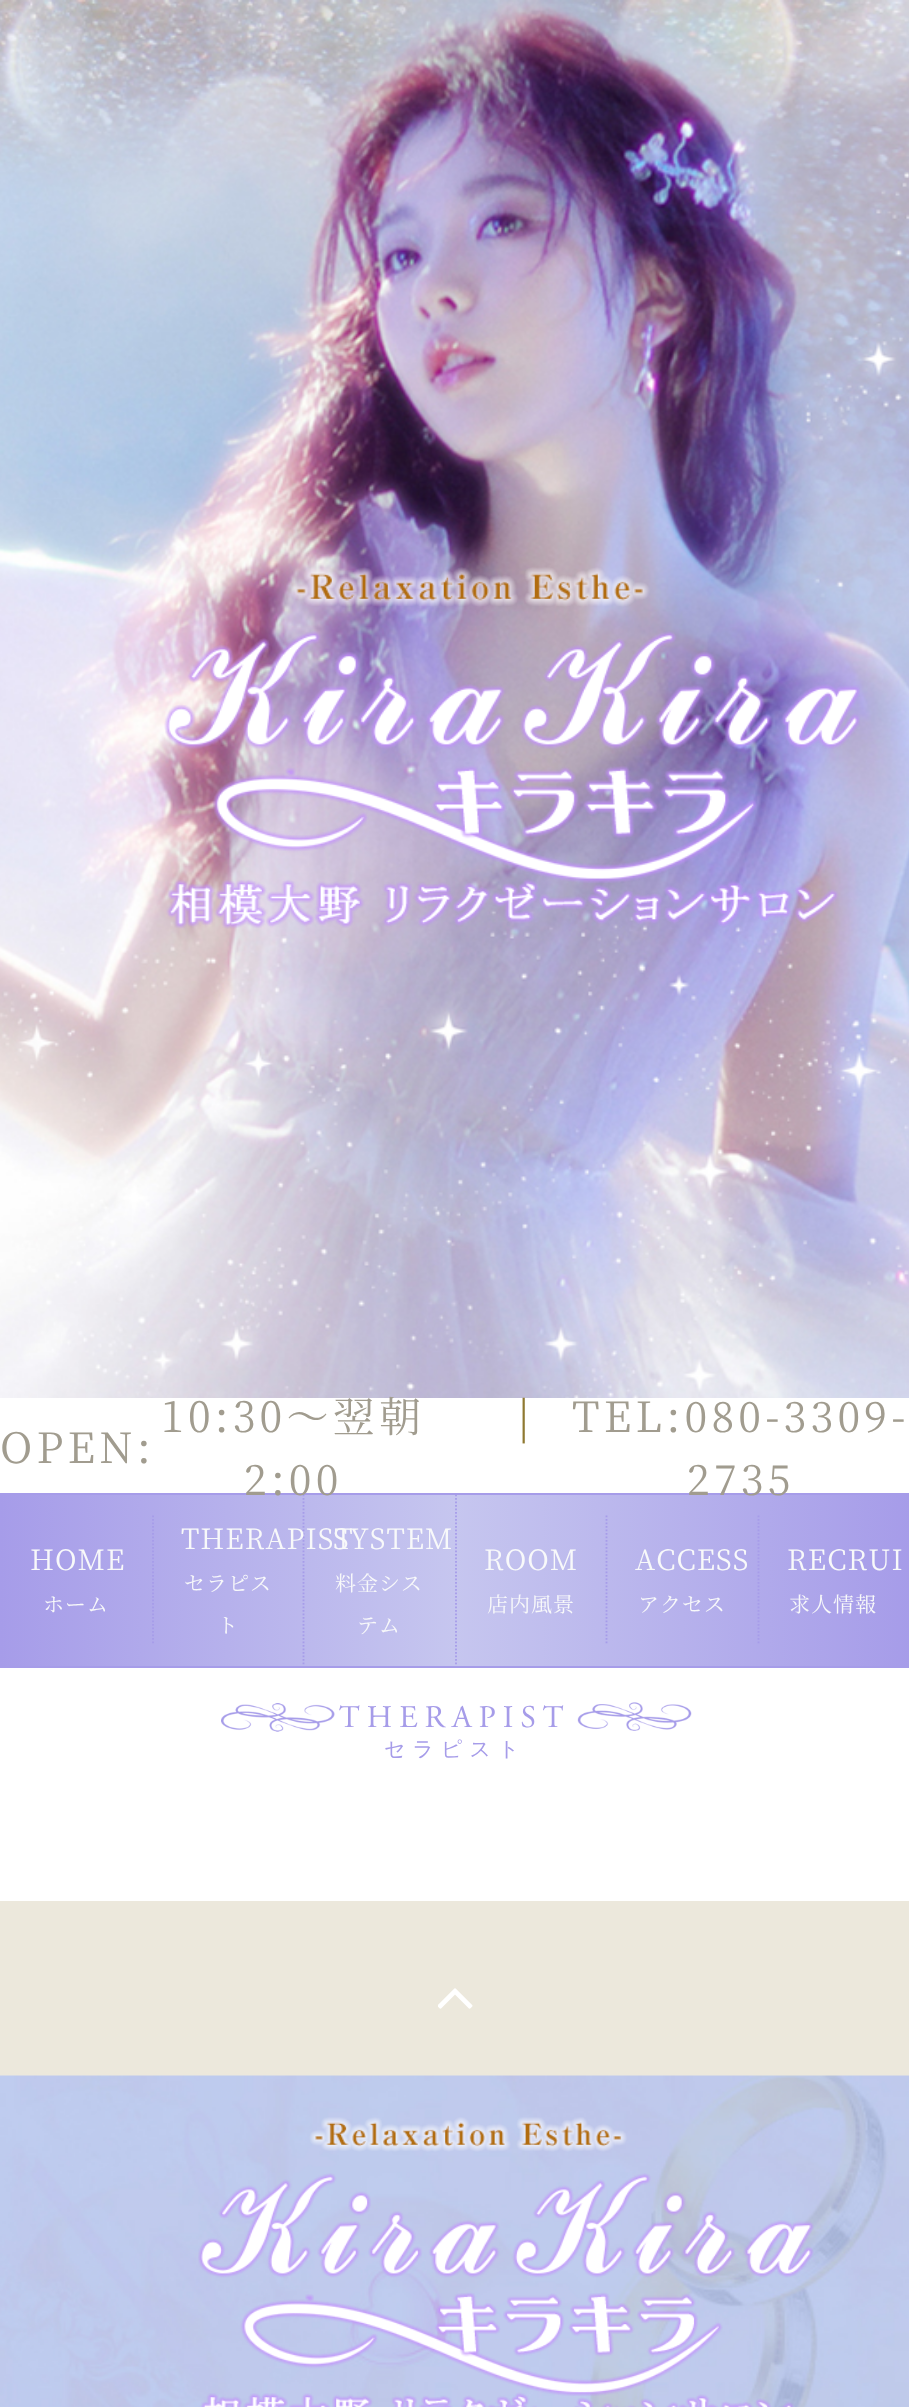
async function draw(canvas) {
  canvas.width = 909
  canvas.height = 2407
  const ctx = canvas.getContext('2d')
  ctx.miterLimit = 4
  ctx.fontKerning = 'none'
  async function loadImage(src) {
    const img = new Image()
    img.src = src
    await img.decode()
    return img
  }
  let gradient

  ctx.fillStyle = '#fff'
  ctx.fillRect(0, 0, 909, 2407)
  ctx.drawImage(await loadImage('image0.png'), 0, 0, 909, 1398)
  ctx.drawImage(await loadImage('image1.png'), 164, 567, 696, 362)
  ctx.letterSpacing = '4.25px'
  ctx.font = '42px Noto Serif JP'
  ctx.fillStyle = '#a19c8f'
  ctx.fillText('OPEN:', 0, 1463)
  ctx.fillText('10:30～翌朝', 161, 1432)
  ctx.fillStyle = '#8f7931'
  ctx.fillText('|', 518, 1432)
  ctx.fillStyle = '#a19c8f'
  ctx.fillText('TEL:080-3309-', 572, 1432)
  gradient = ctx.createLinearGradient(0, 1580, 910, 1580)
  gradient.addColorStop(0, '#a69ce9')
  gradient.addColorStop(0.5, '#c6c6ef')
  gradient.addColorStop(1, '#a69ce9')
  ctx.fillStyle = gradient
  ctx.fillRect(0, 1495, 909, 171)
  ctx.fillStyle = '#a69ce9'
  ctx.fillRect(0, 1493, 909, 2)
  ctx.fillStyle = '#a19c8f'
  ctx.fillText('2735', 687, 1495)
  ctx.beginPath()
  ctx.moveTo(303.5, 1494.5)
  ctx.lineTo(303.5, 1666)
  ctx.strokeStyle = '#a69ce9'
  ctx.lineWidth = 1.8
  ctx.setLineDash([1.75, 1.75])
  ctx.stroke()
  ctx.fillText('2:00', 244, 1495)
  ctx.fillStyle = '#a69ce9'
  ctx.fillRect(0, 1666, 909, 2)
  ctx.beginPath()
  ctx.moveTo(153, 1515.5)
  ctx.lineTo(153, 1645)
  ctx.stroke()
  ctx.letterSpacing = '1px'
  ctx.font = '28px Noto Serif JP'
  ctx.fillStyle = '#f8f9fa'
  ctx.fillText('HOME', 30, 1570)
  ctx.font = '21px Noto Serif JP'
  ctx.fillText('ホーム', 43, 1612)
  ctx.font = '28px Noto Serif JP'
  ctx.fillText('THERAPIST', 181, 1549)
  ctx.font = '21px Noto Serif JP'
  ctx.fillText('セラピス', 184, 1591)
  ctx.fillText('ト', 217, 1633)
  ctx.beginPath()
  ctx.moveTo(456, 1494.5)
  ctx.lineTo(456, 1666)
  ctx.stroke()
  ctx.font = '28px Noto Serif JP'
  ctx.fillText('SYSTEM', 333, 1549)
  ctx.font = '21px Noto Serif JP'
  ctx.fillText('料金シス', 335, 1591)
  ctx.fillText('テム', 357, 1633)
  ctx.beginPath()
  ctx.moveTo(606.5, 1515.5)
  ctx.lineTo(606.5, 1645)
  ctx.stroke()
  ctx.font = '28px Noto Serif JP'
  ctx.fillText('ROOM', 484, 1570)
  ctx.font = '21px Noto Serif JP'
  ctx.fillText('店内風景', 487, 1612)
  ctx.beginPath()
  ctx.moveTo(758.5, 1515.5)
  ctx.lineTo(758.5, 1645)
  ctx.stroke()
  ctx.font = '28px Noto Serif JP'
  ctx.fillText('ACCESS', 635, 1570)
  ctx.font = '21px Noto Serif JP'
  ctx.fillText('アクセス', 638, 1612)
  ctx.font = '28px Noto Serif JP'
  ctx.fillText('RECRUI', 787, 1570)
  ctx.font = '21px Noto Serif JP'
  ctx.fillText('求人情報', 789, 1612)
  ctx.drawImage(await loadImage('image2.png'), 221, 1702, 471, 30)
  ctx.letterSpacing = '7px'
  ctx.font = '31.5px Adobe Garamond'
  ctx.fillStyle = '#a69ce9'
  ctx.fillText('THERAPIST', 339, 1727)
  ctx.font = '500 21px WenQuanYi Zen Hei'
  ctx.fillText('セラピスト', 384, 1756)
  ctx.fillStyle = '#ece8dc'
  ctx.fillRect(0, 1901, 909, 175)
  ctx.drawImage(await loadImage('image3.png'), 438, 1988, 35, 21)
  ctx.drawImage(await loadImage('image4.png'), 0, 2075, 909, 332)
  ctx.drawImage(await loadImage('image5.png'), 198, 2117, 616, 290)
}

draw(document.querySelector('canvas'))
